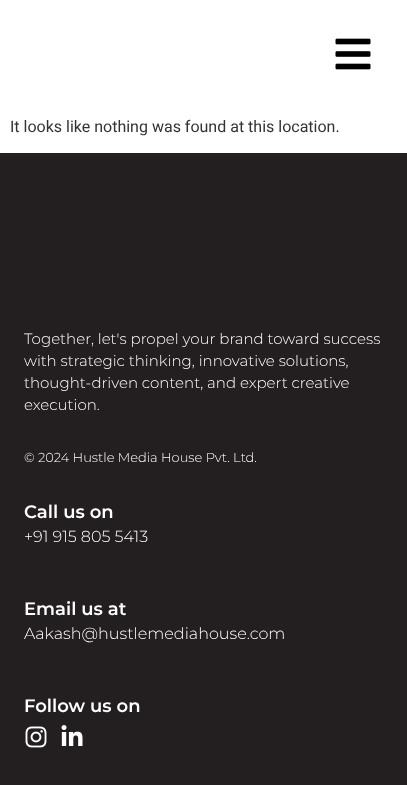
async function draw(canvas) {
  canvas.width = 407
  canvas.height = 785
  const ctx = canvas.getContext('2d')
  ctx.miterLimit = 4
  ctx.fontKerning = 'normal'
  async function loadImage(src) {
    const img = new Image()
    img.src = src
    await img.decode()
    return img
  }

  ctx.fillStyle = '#fff'
  ctx.fillRect(0, 0, 407, 785)
  ctx.drawImage(await loadImage('image0.png'), 335, 38, 36, 32)
  ctx.font = '16px Roboto'
  ctx.fillStyle = '#333'
  ctx.fillText('It looks like nothing was found at this location.', 10, 132)
  ctx.fillStyle = '#231f20'
  ctx.fillRect(0, 153, 407, 632)
  ctx.font = '300 15px Montserrat'
  ctx.fillStyle = '#fff'
  ctx.fillText('Together, let\'s propel your brand toward success', 24, 344)
  ctx.fillText('with strategic thinking, innovative solutions,', 24, 366)
  ctx.fillText('thought-driven content, and expert creative', 24, 388)
  ctx.fillText('execution.', 24, 410)
  ctx.font = '300 13px Montserrat'
  ctx.fillText('© 2024 Hustle Media House Pvt. Ltd.', 24, 462)
  ctx.font = '600 18px Montserrat'
  ctx.fillText('Call us on', 24, 518)
  ctx.font = '300 16px Montserrat'
  ctx.fillText('+91 915 805 5413', 24, 542)
  ctx.font = '600 18px Montserrat'
  ctx.fillText('Email us at', 24, 615)
  ctx.font = '300 16px Montserrat'
  ctx.fillText('Aakash@hustlemediahouse.com', 24, 639)
  ctx.font = '600 18px Montserrat'
  ctx.fillText('Follow us on', 24, 712)
  ctx.drawImage(await loadImage('image1.png'), 25, 726, 22, 22)
  ctx.drawImage(await loadImage('image2.png'), 61, 725, 22, 21)
}

draw(document.querySelector('canvas'))
